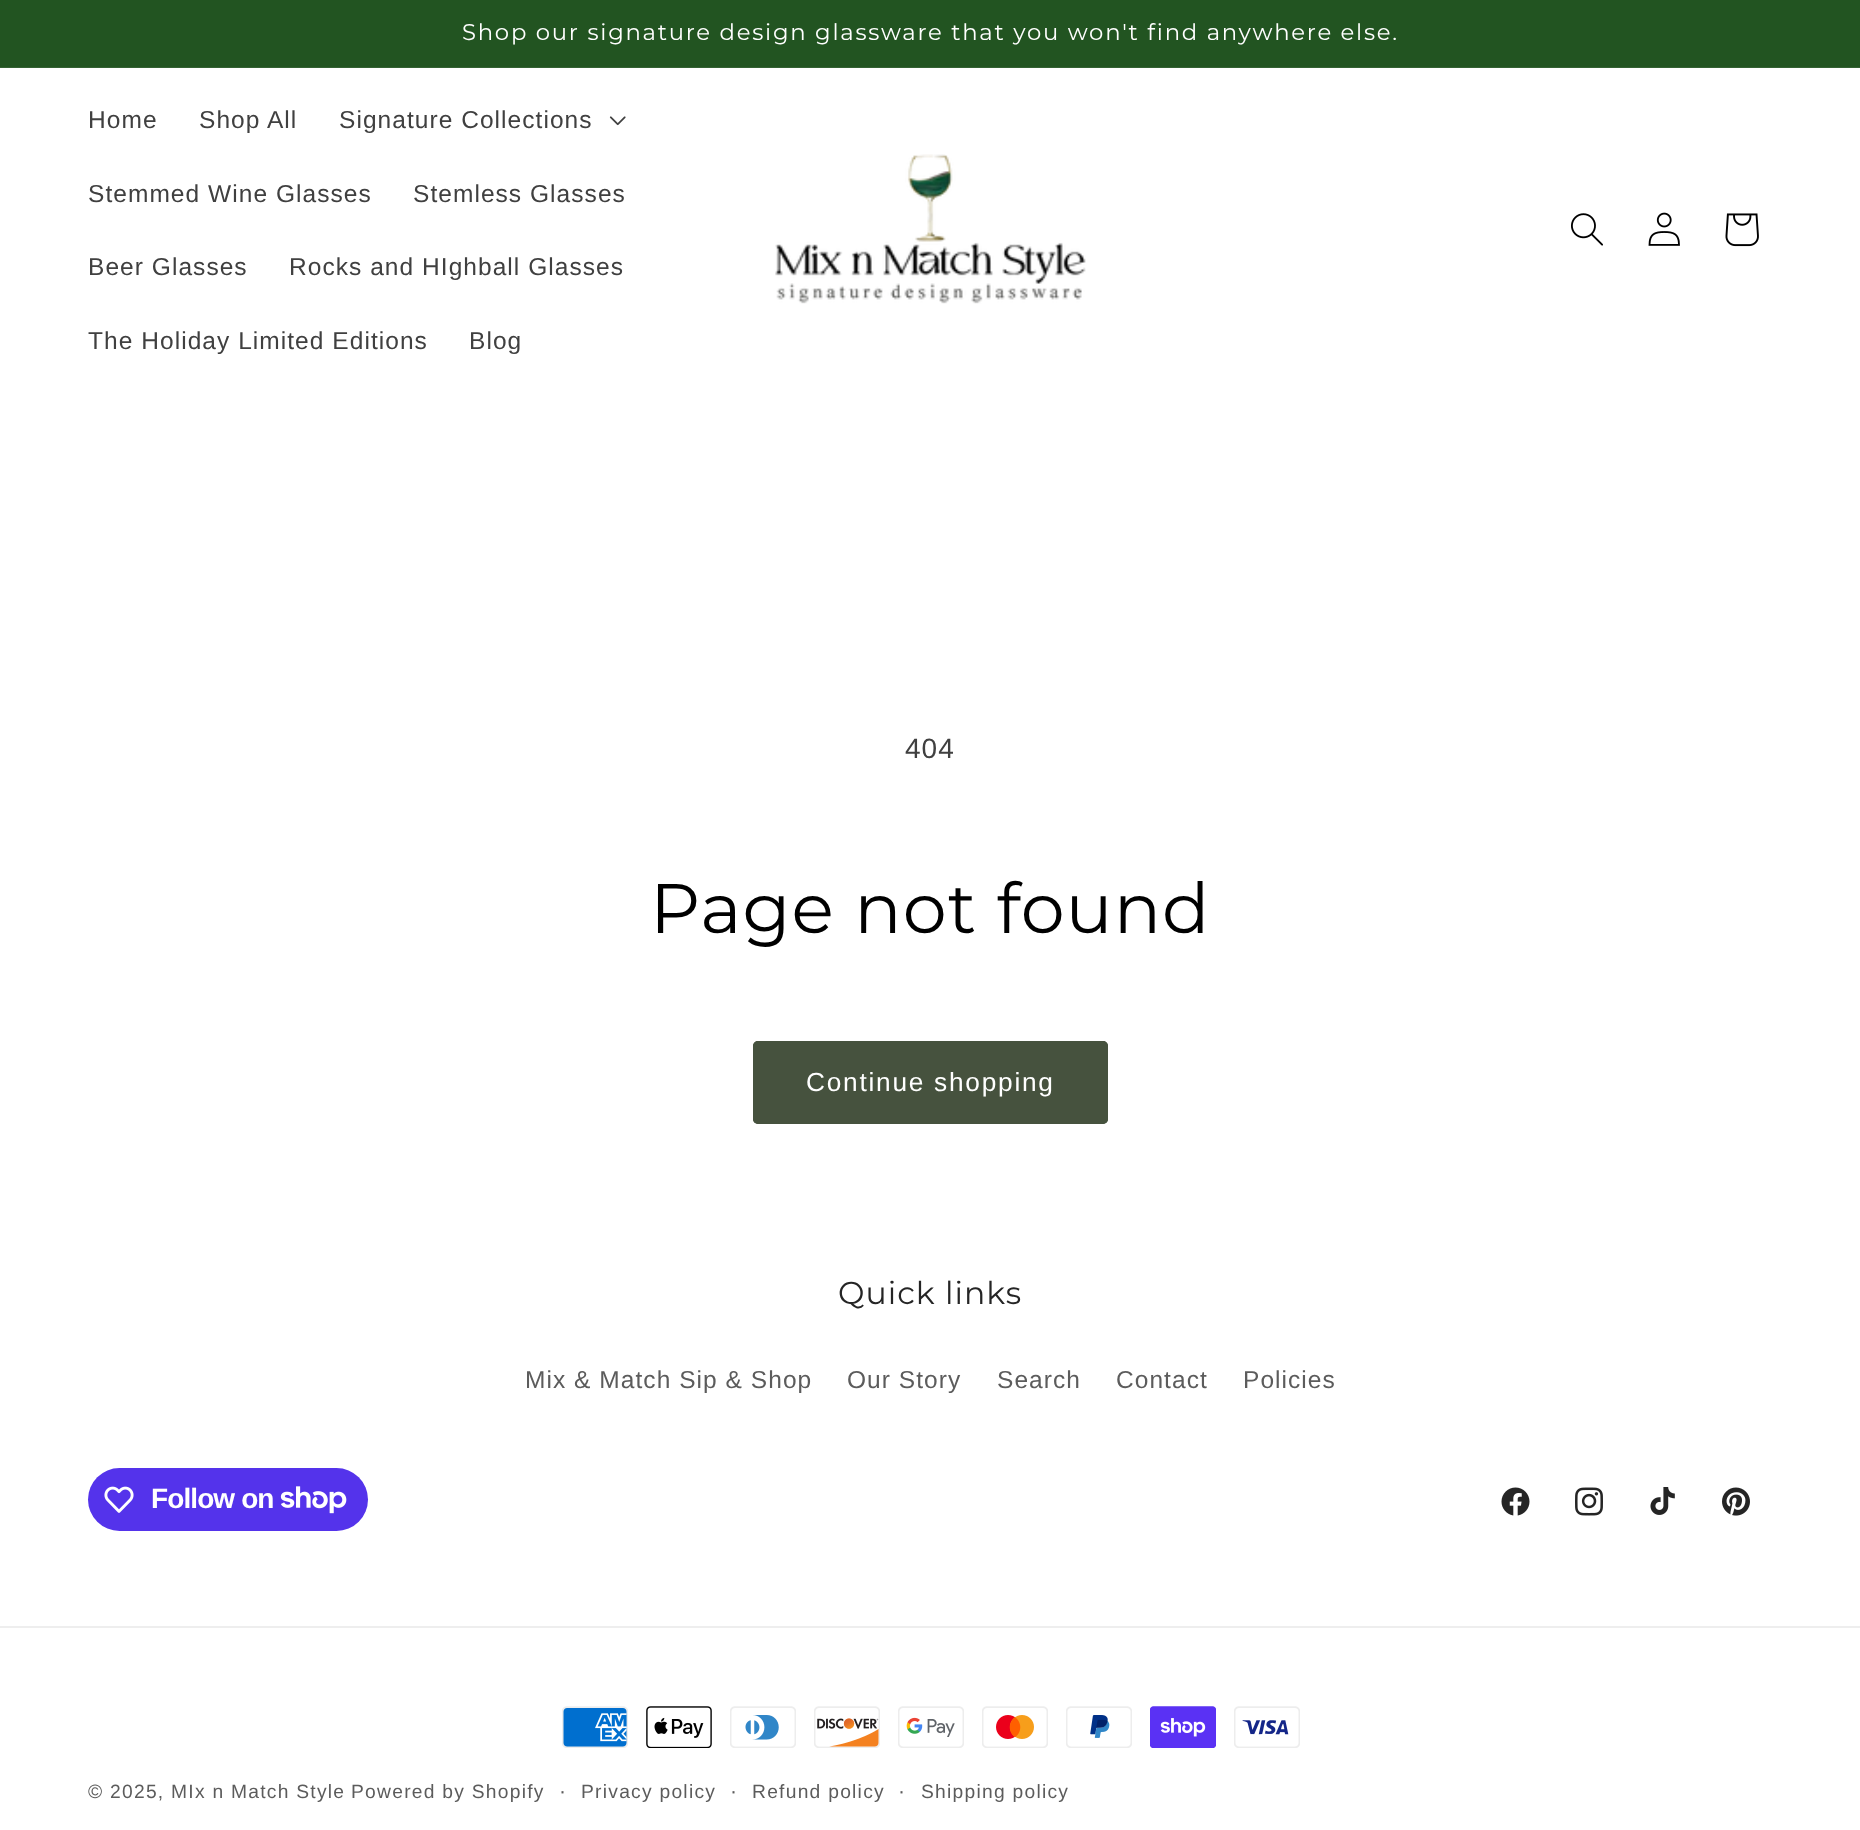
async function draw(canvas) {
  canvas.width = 1860
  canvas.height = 1830
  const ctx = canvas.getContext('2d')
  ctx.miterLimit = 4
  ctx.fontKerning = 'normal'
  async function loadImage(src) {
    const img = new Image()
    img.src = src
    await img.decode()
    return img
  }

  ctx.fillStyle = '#fff'
  ctx.fillRect(0, 0, 1860, 1830)
  ctx.fillStyle = '#225421'
  ctx.fillRect(0, 0, 1860, 67)
  ctx.fillStyle = '#346233'
  ctx.fillRect(0, 67, 1860, 1)
  ctx.letterSpacing = '1.75px'
  ctx.font = '22.75px Montserrat'
  ctx.fillStyle = '#fff'
  ctx.fillText('Shop our signature design glassware that you won\'t find anywhere else.', 462, 40)
  ctx.letterSpacing = '1.05px'
  ctx.font = '24.5px Liberation Sans'
  ctx.fillStyle = '#404040'
  ctx.fillText('Home', 88, 128)
  ctx.fillText('Shop All', 199, 128)
  ctx.fillText('Signature Collections', 339, 128)
  ctx.drawImage(await loadImage('image0.png'), 609, 116, 17, 10)
  ctx.fillText('Stemmed Wine Glasses', 88, 202)
  ctx.fillText('Stemless Glasses', 413, 202)
  ctx.fillText('Beer Glasses', 88, 275)
  ctx.fillText('Rocks and HIghball Glasses', 289, 275)
  ctx.fillText('The Holiday Limited Editions', 88, 349)
  ctx.fillText('Blog', 469, 349)
  ctx.drawImage(await loadImage('image1.png'), 775, 154, 311, 150)
  ctx.drawImage(await loadImage('image2.png'), 1571, 213, 32, 33)
  ctx.drawImage(await loadImage('image3.png'), 1648, 212, 32, 34)
  ctx.drawImage(await loadImage('image4.png'), 1725, 213, 34, 34)
  ctx.font = '28px Liberation Sans'
  ctx.fillText('404', 905, 758)
  ctx.font = '70px Montserrat'
  ctx.fillStyle = '#000'
  ctx.fillText('Page not found', 650, 933)
  ctx.fillStyle = '#46523e'
  ctx.beginPath()
  ctx.roundRect(753, 1041, 355, 83, 5)
  ctx.fill()
  ctx.beginPath()
  ctx.roundRect(754, 1042, 353, 81, 4)
  ctx.strokeStyle = '#46523e'
  ctx.lineWidth = 2
  ctx.stroke()
  ctx.letterSpacing = '1.75px'
  ctx.font = '26.25px Liberation Sans'
  ctx.fillStyle = '#fff'
  ctx.fillText('Continue shopping', 806, 1091)
  ctx.letterSpacing = '1.05px'
  ctx.font = '31.5px Montserrat'
  ctx.fillStyle = '#252525'
  ctx.fillText('Quick links', 838, 1304)
  ctx.font = '24.5px Liberation Sans'
  ctx.fillStyle = '#5c5c5c'
  ctx.fillText('Mix & Match Sip & Shop', 525, 1388)
  ctx.fillText('Our Story', 847, 1388)
  ctx.fillText('Search', 997, 1388)
  ctx.fillText('Contact', 1116, 1388)
  ctx.fillText('Policies', 1243, 1388)
  ctx.fillStyle = '#5433eb'
  ctx.beginPath()
  ctx.roundRect(88, 1468, 280, 63, 31.5)
  ctx.fill()
  ctx.drawImage(await loadImage('image5.png'), 104, 1486, 30, 27)
  ctx.letterSpacing = '-0.9px'
  ctx.font = 'bold 28px Liberation Sans'
  ctx.fillStyle = '#fff'
  ctx.fillText('Follow on', 151, 1508)
  ctx.drawImage(await loadImage('image6.png'), 280, 1486, 67, 28)
  ctx.drawImage(await loadImage('image7.png'), 1501, 1487, 29, 29)
  ctx.drawImage(await loadImage('image8.png'), 1575, 1487, 28, 29)
  ctx.drawImage(await loadImage('image9.png'), 1650, 1487, 25, 28)
  ctx.drawImage(await loadImage('image10.png'), 1722, 1487, 28, 29)
  ctx.fillStyle = '#eee'
  ctx.fillRect(0, 1626, 1860, 2)
  ctx.drawImage(await loadImage('image11.png'), 562, 1706, 66, 42)
  ctx.drawImage(await loadImage('image12.png'), 646, 1706, 66, 42)
  ctx.drawImage(await loadImage('image13.png'), 730, 1706, 66, 42)
  ctx.drawImage(await loadImage('image14.png'), 814, 1706, 66, 42)
  ctx.drawImage(await loadImage('image15.png'), 898, 1706, 66, 42)
  ctx.drawImage(await loadImage('image16.png'), 982, 1706, 66, 42)
  ctx.drawImage(await loadImage('image17.png'), 1066, 1706, 66, 42)
  ctx.drawImage(await loadImage('image18.png'), 1150, 1706, 66, 42)
  ctx.drawImage(await loadImage('image19.png'), 1234, 1706, 66, 42)
  ctx.letterSpacing = '1.25px'
  ctx.font = '19.25px Liberation Sans'
  ctx.fillStyle = '#5c5c5c'
  ctx.fillText('© 2025, MIx n Match Style', 88, 1798)
  ctx.fillText('Powered by Shopify', 351, 1798)
  ctx.font = '21px Liberation Sans'
  ctx.fillText('·', 559, 1798)
  ctx.font = '19.25px Liberation Sans'
  ctx.fillText('Privacy policy', 581, 1798)
  ctx.font = '21px Liberation Sans'
  ctx.fillText('·', 730, 1798)
  ctx.font = '19.25px Liberation Sans'
  ctx.fillText('Refund policy', 752, 1798)
  ctx.font = '21px Liberation Sans'
  ctx.fillText('·', 898, 1798)
  ctx.font = '19.25px Liberation Sans'
  ctx.fillText('Shipping policy', 921, 1798)
}

draw(document.querySelector('canvas'))
